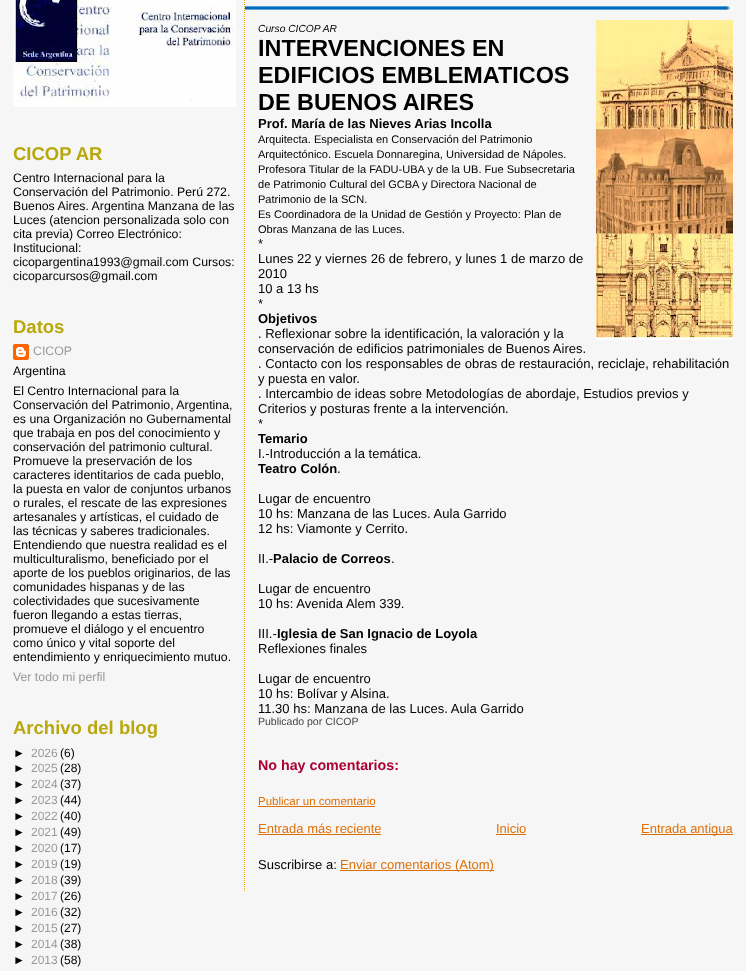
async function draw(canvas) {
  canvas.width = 746
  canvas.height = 971
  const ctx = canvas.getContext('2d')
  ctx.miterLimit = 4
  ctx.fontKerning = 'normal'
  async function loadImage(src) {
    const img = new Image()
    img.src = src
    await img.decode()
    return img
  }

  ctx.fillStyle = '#f6f6f6'
  ctx.fillRect(0, 0, 746, 971)
  ctx.drawImage(await loadImage('image0.png'), 13, 0, 223, 107)
  ctx.font = 'bold 18.5px Liberation Sans'
  ctx.fillStyle = '#b8a80d'
  ctx.fillText('CICOP AR', 13, 160)
  ctx.font = '12.3px Liberation Sans'
  ctx.fillStyle = '#000'
  ctx.fillText('Centro Internacional para la', 13, 182)
  ctx.fillText('Conservación del Patrimonio. Perú 272.', 13, 196)
  ctx.fillText('Buenos Aires. Argentina Manzana de las', 13, 210)
  ctx.fillText('Luces (atencion personalizada solo con', 13, 224)
  ctx.fillText('cita previa) Correo Electrónico:', 13, 238)
  ctx.fillText('Institucional:', 13, 252)
  ctx.fillText('cicopargentina1993@gmail.com Cursos:', 13, 266)
  ctx.fillText('cicoparcursos@gmail.com', 13, 280)
  ctx.font = 'bold 18.5px Liberation Sans'
  ctx.fillStyle = '#b8a80d'
  ctx.fillText('Datos', 13, 333)
  ctx.drawImage(await loadImage('image1.png'), 13, 344, 16, 16)
  ctx.font = '12.3px Liberation Sans'
  ctx.fillStyle = '#999'
  ctx.fillText('CICOP', 33, 355)
  ctx.fillStyle = '#000'
  ctx.fillText('Argentina', 13, 375)
  ctx.fillText('El Centro Internacional para la', 13, 395)
  ctx.fillText('Conservación del Patrimonio, Argentina,', 13, 409)
  ctx.fillText('es una Organización no Gubernamental', 13, 423)
  ctx.fillText('que trabaja en pos del conocimiento y', 13, 437)
  ctx.fillText('conservación del patrimonio cultural.', 13, 451)
  ctx.fillText('Promueve la preservación de los', 13, 465)
  ctx.fillText('caracteres identitarios de cada pueblo,', 13, 479)
  ctx.fillText('la puesta en valor de conjuntos urbanos', 13, 493)
  ctx.fillText('o rurales, el rescate de las expresiones', 13, 507)
  ctx.fillText('artesanales y artísticas, el cuidado de', 13, 521)
  ctx.fillText('las técnicas y saberes tradicionales.', 13, 535)
  ctx.fillText('Entendiendo que nuestra realidad es el', 13, 549)
  ctx.fillText('multiculturalismo, beneficiado por el', 13, 563)
  ctx.fillText('aporte de los pueblos originarios, de las', 13, 577)
  ctx.fillText('comunidades hispanas y de las', 13, 591)
  ctx.fillText('colectividades que sucesivamente', 13, 605)
  ctx.fillText('fueron llegando a estas tierras,', 13, 619)
  ctx.fillText('promueve el diálogo y el encuentro', 13, 633)
  ctx.fillText('como único y vital soporte del', 13, 647)
  ctx.fillText('entendimiento y enriquecimiento mutuo.', 13, 661)
  ctx.fillStyle = '#999'
  ctx.fillText('Ver todo mi perfil', 13, 681)
  ctx.font = 'bold 18.5px Liberation Sans'
  ctx.fillStyle = '#b8a80d'
  ctx.fillText('Archivo del blog', 13, 734)
  ctx.font = '12px Liberation Sans'
  ctx.fillStyle = '#000'
  ctx.fillText('►', 13, 757)
  ctx.fillStyle = '#999'
  ctx.fillText('2026', 31, 757)
  ctx.fillStyle = '#000'
  ctx.fillText('(6)', 60, 757)
  ctx.fillText('►', 13, 772)
  ctx.fillStyle = '#999'
  ctx.fillText('2025', 31, 772)
  ctx.fillStyle = '#000'
  ctx.fillText('(28)', 60, 772)
  ctx.fillText('►', 13, 788)
  ctx.fillStyle = '#999'
  ctx.fillText('2024', 31, 788)
  ctx.fillStyle = '#000'
  ctx.fillText('(37)', 60, 788)
  ctx.fillText('►', 13, 804)
  ctx.fillStyle = '#999'
  ctx.fillText('2023', 31, 804)
  ctx.fillStyle = '#000'
  ctx.fillText('(44)', 60, 804)
  ctx.fillText('►', 13, 820)
  ctx.fillStyle = '#999'
  ctx.fillText('2022', 31, 820)
  ctx.fillStyle = '#000'
  ctx.fillText('(40)', 60, 820)
  ctx.fillText('►', 13, 836)
  ctx.fillStyle = '#999'
  ctx.fillText('2021', 31, 836)
  ctx.fillStyle = '#000'
  ctx.fillText('(49)', 60, 836)
  ctx.fillText('►', 13, 852)
  ctx.fillStyle = '#999'
  ctx.fillText('2020', 31, 852)
  ctx.fillStyle = '#000'
  ctx.fillText('(17)', 60, 852)
  ctx.fillText('►', 13, 868)
  ctx.fillStyle = '#999'
  ctx.fillText('2019', 31, 868)
  ctx.fillStyle = '#000'
  ctx.fillText('(19)', 60, 868)
  ctx.fillText('►', 13, 884)
  ctx.fillStyle = '#999'
  ctx.fillText('2018', 31, 884)
  ctx.fillStyle = '#000'
  ctx.fillText('(39)', 60, 884)
  ctx.fillText('►', 13, 900)
  ctx.fillStyle = '#999'
  ctx.fillText('2017', 31, 900)
  ctx.fillStyle = '#000'
  ctx.fillText('(26)', 60, 900)
  ctx.fillText('►', 13, 916)
  ctx.fillStyle = '#999'
  ctx.fillText('2016', 31, 916)
  ctx.fillStyle = '#000'
  ctx.fillText('(32)', 60, 916)
  ctx.fillText('►', 13, 932)
  ctx.fillStyle = '#999'
  ctx.fillText('2015', 31, 932)
  ctx.fillStyle = '#000'
  ctx.fillText('(27)', 60, 932)
  ctx.fillText('►', 13, 948)
  ctx.fillStyle = '#999'
  ctx.fillText('2014', 31, 948)
  ctx.fillStyle = '#000'
  ctx.fillText('(38)', 60, 948)
  ctx.fillText('►', 13, 964)
  ctx.fillStyle = '#999'
  ctx.fillText('2013', 31, 964)
  ctx.fillStyle = '#000'
  ctx.fillText('(58)', 60, 964)
  ctx.beginPath()
  ctx.moveTo(244.5, -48)
  ctx.lineTo(244.5, 891)
  ctx.strokeStyle = '#e0ad12'
  ctx.setLineDash([1, 1])
  ctx.stroke()
  ctx.drawImage(await loadImage('image2.png'), 245, 6, 488, 4)
  ctx.font = 'italic 10.25px Liberation Sans'
  ctx.fillText('Curso CICOP AR', 258, 32)
  ctx.drawImage(await loadImage('image3.png'), 596, 20, 137, 320)
  ctx.font = 'bold 23.4px Liberation Sans'
  ctx.fillText('INTERVENCIONES EN', 258, 56)
  ctx.fillText('EDIFICIOS EMBLEMATICOS', 258, 83)
  ctx.fillText('DE BUENOS AIRES', 258, 110)
  ctx.font = 'bold 13px Liberation Sans'
  ctx.fillText('Prof. María de las Nieves Arias Incolla', 258, 128)
  ctx.font = '11.05px Liberation Sans'
  ctx.fillText('Arquitecta. Especialista en Conservación del Patrimonio', 258, 143)
  ctx.fillText('Arquitectónico. Escuela Donnaregina, Universidad de Nápoles.', 258, 158)
  ctx.fillText('Profesora Titular de la FADU-UBA y de la UB. Fue Subsecretaria', 258, 173)
  ctx.fillText('de Patrimonio Cultural del GCBA y Directora Nacional de', 258, 188)
  ctx.fillText('Patrimonio de la SCN.', 258, 203)
  ctx.fillText('Es Coordinadora de la Unidad de Gestión y Proyecto: Plan de', 258, 218)
  ctx.fillText('Obras Manzana de las Luces.', 258, 233)
  ctx.font = '13px Liberation Sans'
  ctx.fillText('*', 258, 248)
  ctx.fillText('Lunes 22 y viernes 26 de febrero, y lunes 1 de marzo de', 258, 263)
  ctx.fillText('2010', 258, 278)
  ctx.fillText('10 a 13 hs', 258, 293)
  ctx.fillText('*', 258, 308)
  ctx.font = 'bold 13px Liberation Sans'
  ctx.fillText('Objetivos', 258, 323)
  ctx.font = '13px Liberation Sans'
  ctx.fillText('. Reflexionar sobre la identificación, la valoración y la', 258, 338)
  ctx.fillText('conservación de edificios patrimoniales de Buenos Aires.', 258, 353)
  ctx.fillText('. Contacto con los responsables de obras de restauración, reciclaje, rehabilitación', 258, 368)
  ctx.fillText('y puesta en valor.', 258, 383)
  ctx.fillText('. Intercambio de ideas sobre Metodologías de abordaje, Estudios previos y', 258, 398)
  ctx.fillText('Criterios y posturas frente a la intervención.', 258, 413)
  ctx.fillText('*', 258, 428)
  ctx.font = 'bold 13px Liberation Sans'
  ctx.fillText('Temario', 258, 443)
  ctx.font = '13px Liberation Sans'
  ctx.fillText('I.-Introducción a la temática.', 258, 458)
  ctx.font = 'bold 13px Liberation Sans'
  ctx.fillText('Teatro Colón', 258, 473)
  ctx.font = '13px Liberation Sans'
  ctx.fillText('.', 337, 473)
  ctx.fillText('Lugar de encuentro', 258, 503)
  ctx.fillText('10 hs: Manzana de las Luces. Aula Garrido', 258, 518)
  ctx.fillText('12 hs: Viamonte y Cerrito.', 258, 533)
  ctx.fillText('II.-', 258, 563)
  ctx.font = 'bold 13px Liberation Sans'
  ctx.fillText('Palacio de Correos', 273, 563)
  ctx.font = '13px Liberation Sans'
  ctx.fillText('.', 391, 563)
  ctx.fillText('Lugar de encuentro', 258, 593)
  ctx.fillText('10 hs: Avenida Alem 339.', 258, 608)
  ctx.fillText('III.-', 258, 638)
  ctx.font = 'bold 13px Liberation Sans'
  ctx.fillText('Iglesia de San Ignacio de Loyola', 277, 638)
  ctx.font = '13px Liberation Sans'
  ctx.fillText('Reflexiones finales', 258, 653)
  ctx.fillText('Lugar de encuentro', 258, 683)
  ctx.fillText('10 hs: Bolívar y Alsina.', 258, 698)
  ctx.fillText('11.30 hs: Manzana de las Luces. Aula Garrido', 258, 713)
  ctx.font = '10.5px Liberation Sans'
  ctx.fillStyle = '#444'
  ctx.fillText('Publicado por CICOP', 258, 725)
  ctx.font = 'bold 14.25px Liberation Sans'
  ctx.fillStyle = '#a03'
  ctx.fillText('No hay comentarios:', 258, 770)
  ctx.font = '11.5px Liberation Sans'
  ctx.fillStyle = '#de7008'
  ctx.fillText('Publicar un comentario', 258, 805)
  ctx.fillRect(258, 806, 117, 1)
  ctx.font = '13px Liberation Sans'
  ctx.fillText('Entrada más reciente', 258, 833)
  ctx.fillRect(258, 834, 123, 1)
  ctx.fillText('Inicio', 496, 833)
  ctx.fillRect(496, 834, 30, 1)
  ctx.fillRect(641, 834, 92, 1)
  ctx.fillText('Entrada antigua', 641, 833)
  ctx.fillStyle = '#000'
  ctx.fillText('Suscribirse a:', 258, 869)
  ctx.fillStyle = '#de7008'
  ctx.fillRect(340, 870, 154, 1)
  ctx.fillText('Enviar comentarios (Atom)', 340, 869)
}

draw(document.querySelector('canvas'))
